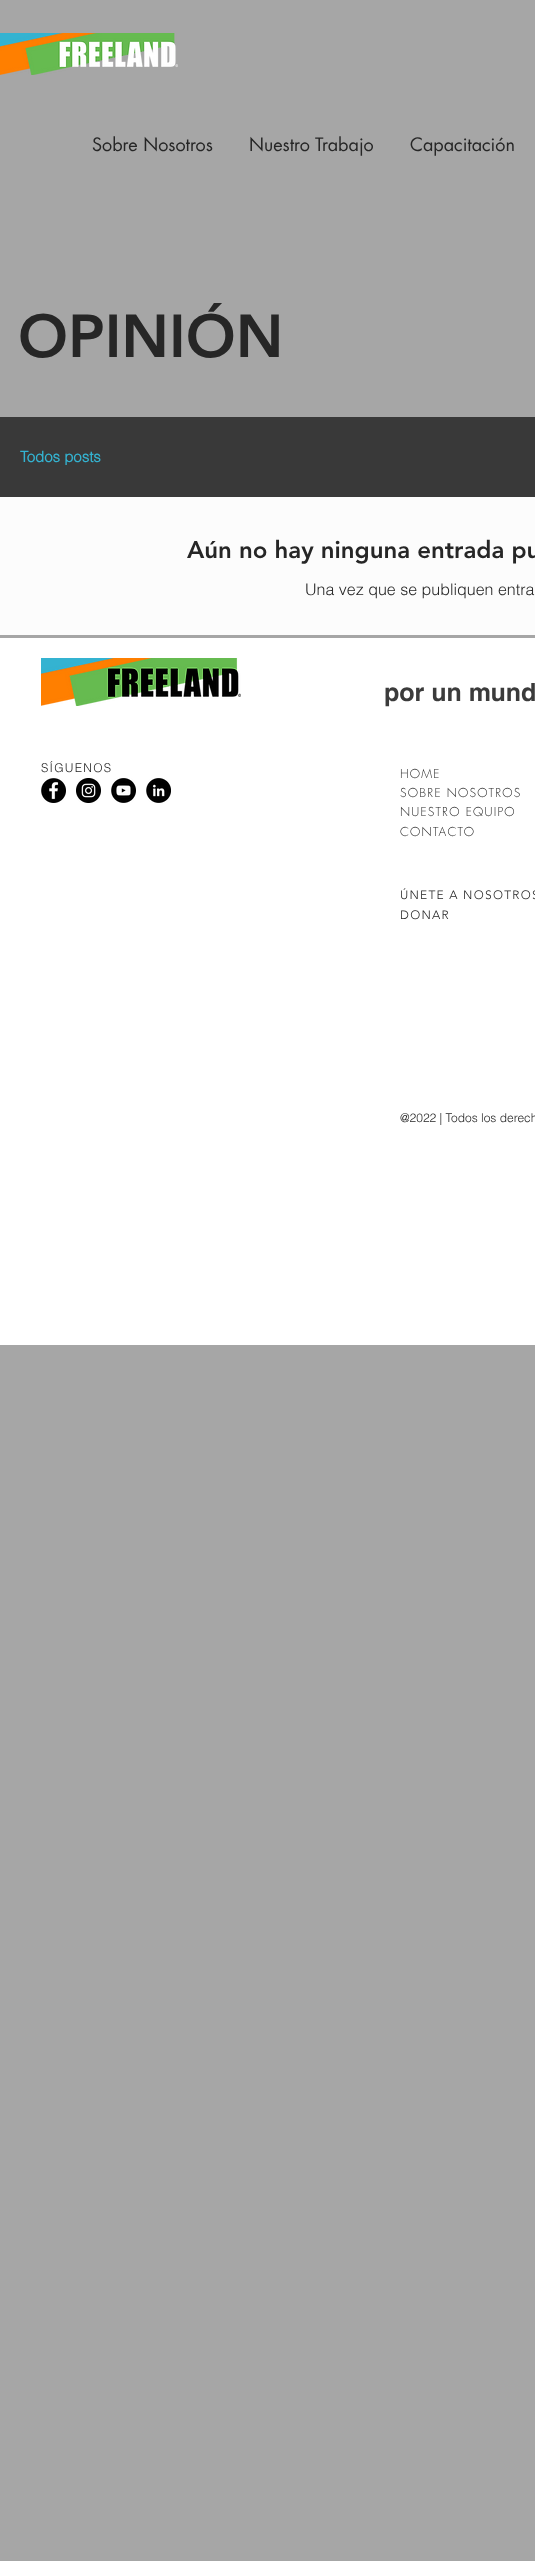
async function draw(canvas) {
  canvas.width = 535
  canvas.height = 2561
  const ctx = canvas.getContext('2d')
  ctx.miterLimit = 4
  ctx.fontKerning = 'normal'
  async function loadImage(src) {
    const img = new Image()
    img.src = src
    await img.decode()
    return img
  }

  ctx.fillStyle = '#a6a6a6'
  ctx.fillRect(0, 0, 535, 2561)
  ctx.drawImage(await loadImage('image0.png'), 0, 33, 178, 42)
  ctx.font = '18px futura'
  ctx.fillStyle = '#262626'
  ctx.fillText('Sobre Nosotros', 92, 151)
  ctx.fillText('Nuestro Trabajo', 249, 151)
  ctx.fillText('Capacitación', 410, 151)
  ctx.font = '900 60px "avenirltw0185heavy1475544"'
  ctx.fillText('OPINIÓN', 18, 357)
  ctx.fillStyle = '#393939'
  ctx.fillRect(0, 417, 535, 80)
  ctx.font = 'bold 15px helvetica'
  ctx.fillStyle = '#34b3d1'
  ctx.fillText('Todos posts', 20, 462)
  ctx.fillStyle = '#fcfcfc'
  ctx.fillRect(0, 497, 535, 138)
  ctx.font = '900 24px "avenirltw0185heavy1475544"'
  ctx.fillStyle = '#262626'
  ctx.fillText('Aún no hay ninguna entrada pu', 187, 558)
  ctx.font = '300 16px helvetica'
  ctx.fillText('Una vez que se publiquen entra', 305, 595)
  ctx.fillStyle = '#fff'
  ctx.fillRect(0, 638, 535, 707)
  ctx.drawImage(await loadImage('image1.png'), 41, 658, 200, 48)
  ctx.font = 'bold 25px "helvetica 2"'
  ctx.fillStyle = '#3b3b3b'
  ctx.fillText('por un mund', 384, 701)
  ctx.letterSpacing = '1.25px'
  ctx.font = '300 12px helvetica'
  ctx.fillStyle = '#262626'
  ctx.fillText('SÍGUENOS', 41, 772)
  ctx.drawImage(await loadImage('image2.png'), 41, 778, 25, 25)
  ctx.drawImage(await loadImage('image3.png'), 76, 778, 25, 25)
  ctx.drawImage(await loadImage('image4.png'), 111, 778, 25, 25)
  ctx.drawImage(await loadImage('image5.png'), 146, 778, 25, 25)
  ctx.font = '300 12px futura'
  ctx.fillText('HOME', 400, 778)
  ctx.fillText('SOBRE NOSOTROS', 400, 797)
  ctx.fillText('NUESTRO EQUIPO', 400, 816)
  ctx.fillText('CONTACTO', 400, 836)
  ctx.font = '300 12px "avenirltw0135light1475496"'
  ctx.fillText('ÚNETE A NOSOTROS', 400, 899)
  ctx.fillText('DONAR', 400, 919)
  ctx.letterSpacing = '0px'
  ctx.font = '300 12px helvetica'
  ctx.fillText('@2022 | Todos los derech', 400, 1122)
}

draw(document.querySelector('canvas'))
